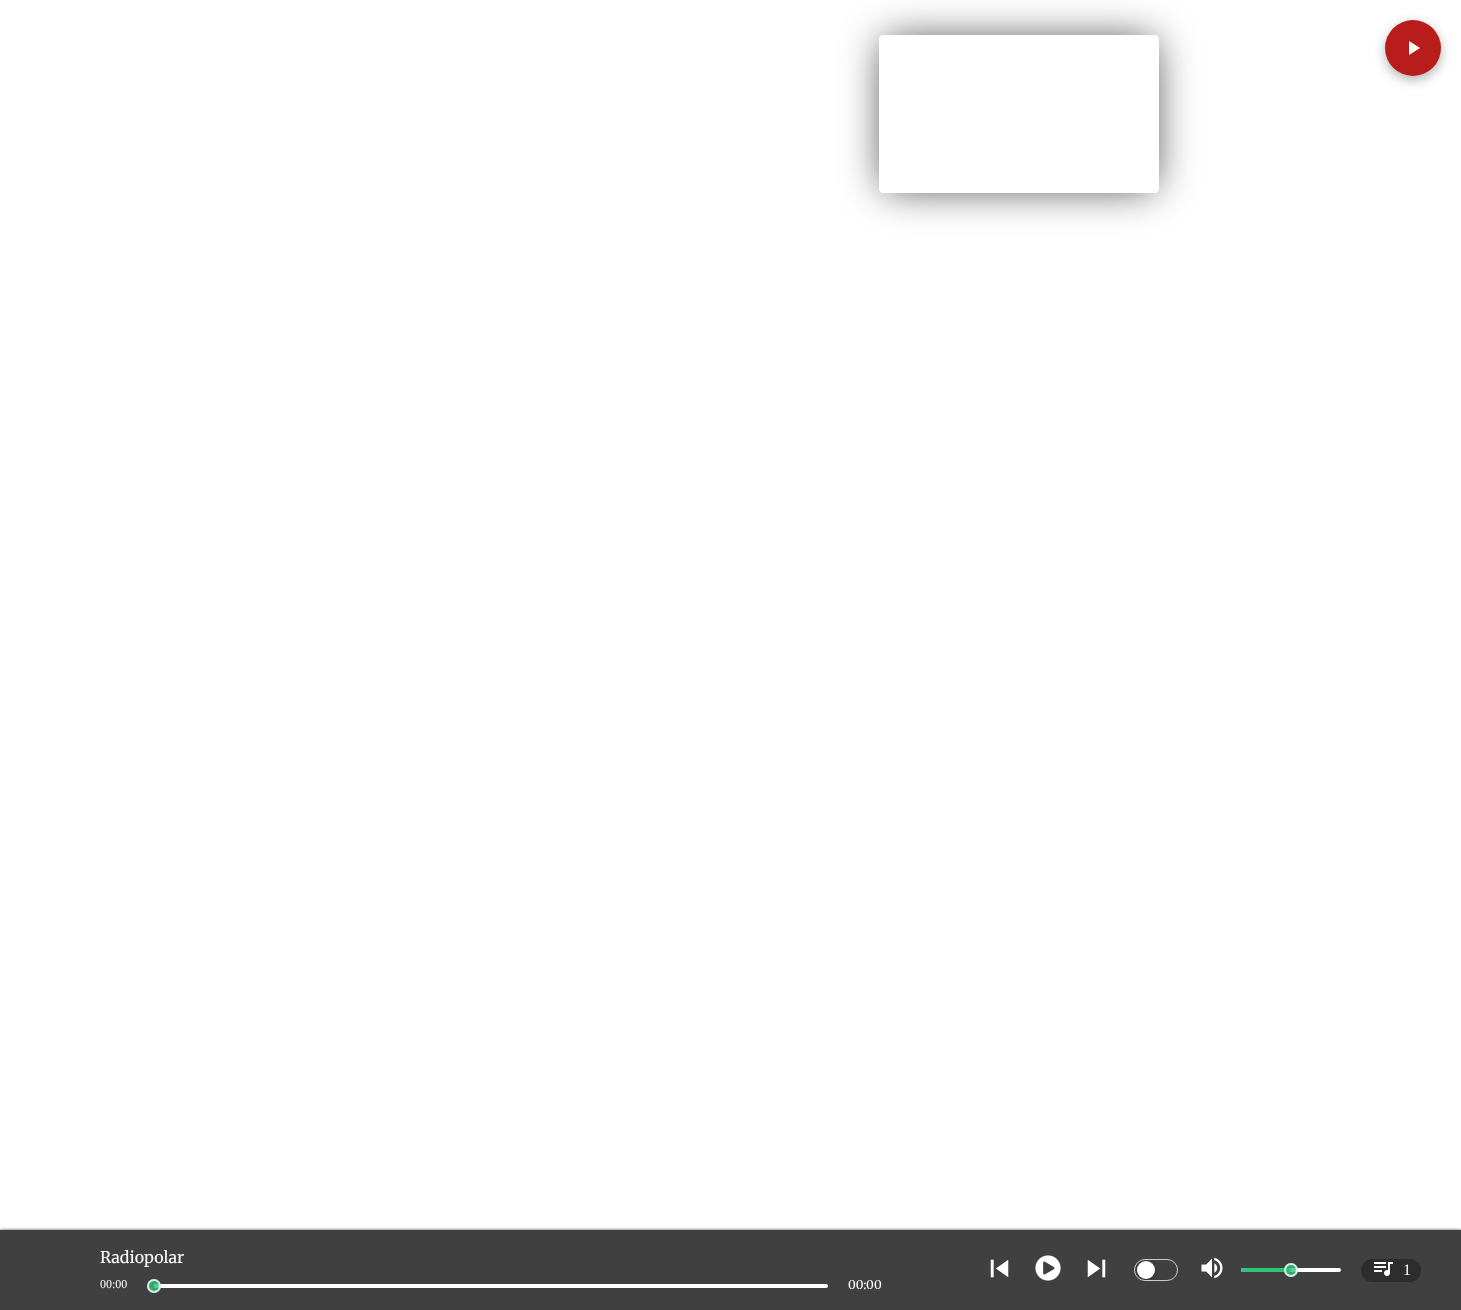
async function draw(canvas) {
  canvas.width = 1461
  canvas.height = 1310
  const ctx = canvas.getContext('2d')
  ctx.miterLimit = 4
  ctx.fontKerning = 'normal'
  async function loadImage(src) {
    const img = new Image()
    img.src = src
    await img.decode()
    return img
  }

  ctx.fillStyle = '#fff'
  ctx.fillRect(0, 0, 1461, 1310)
  ctx.save()
  ctx.beginPath()
  ctx.moveTo(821, 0)
  ctx.lineTo(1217, 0)
  ctx.lineTo(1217, 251)
  ctx.lineTo(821, 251)
  ctx.closePath()
  ctx.moveTo(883, 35)
  ctx.lineTo(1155, 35)
  ctx.bezierCurveTo(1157, 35, 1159, 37, 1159, 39)
  ctx.lineTo(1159, 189)
  ctx.bezierCurveTo(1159, 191, 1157, 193, 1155, 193)
  ctx.lineTo(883, 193)
  ctx.bezierCurveTo(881, 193, 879, 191, 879, 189)
  ctx.lineTo(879, 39)
  ctx.bezierCurveTo(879, 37, 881, 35, 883, 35)
  ctx.closePath()
  ctx.clip('evenodd')
  ctx.fillStyle = '#000000bf'
  ctx.filter = 'blur(20.5px)'
  ctx.beginPath()
  ctx.rect(884, 40, 270, 148)
  ctx.fill()
  ctx.filter = 'none'
  ctx.restore()
  ctx.fillStyle = '#0000004d'
  ctx.filter = 'blur(6px)'
  ctx.beginPath()
  ctx.roundRect(1385, 24, 56, 56, 28)
  ctx.fill()
  ctx.filter = 'none'
  ctx.fillStyle = '#b91d1b'
  ctx.beginPath()
  ctx.arc(1413, 48, 28, 0, 2 * Math.PI)
  ctx.fill()
  ctx.fillStyle = '#fff'
  ctx.beginPath()
  ctx.moveTo(1409, 41)
  ctx.lineTo(1409, 55)
  ctx.lineTo(1420, 48)
  ctx.closePath()
  ctx.fill()
  ctx.fillStyle = '#403f3f'
  ctx.filter = 'blur(1.5px)'
  ctx.beginPath()
  ctx.rect(0, 1230, 1461, 80)
  ctx.fill()
  ctx.filter = 'none'
  ctx.fillStyle = '#404040'
  ctx.fillRect(0, 1230, 1461, 80)
  ctx.font = '16px Merriweather'
  ctx.fillStyle = '#fff'
  ctx.fillText('Radiopolar', 100, 1263)
  ctx.font = '12px Liberation Serif'
  ctx.fillText('00:00', 100, 1288)
  ctx.beginPath()
  ctx.roundRect(154, 1284, 674, 4, 2)
  ctx.fill()
  ctx.fillStyle = '#31c27ccc'
  ctx.beginPath()
  ctx.arc(154, 1286, 7, 0, 2 * Math.PI)
  ctx.fill()
  ctx.beginPath()
  ctx.arc(154, 1286, 6, 0, 2 * Math.PI)
  ctx.strokeStyle = '#ffffffcc'
  ctx.lineWidth = 2
  ctx.stroke()
  ctx.font = '12px Merriweather'
  ctx.fillStyle = '#fff'
  ctx.fillText('00:00', 848, 1289)
  ctx.drawImage(await loadImage('image0.png'), 990, 1259, 19, 19)
  ctx.drawImage(await loadImage('image1.png'), 1035, 1255, 26, 26)
  ctx.drawImage(await loadImage('image2.png'), 1087, 1259, 19, 19)
  ctx.beginPath()
  ctx.roundRect(1134.5, 1259.5, 43, 21, 10.5)
  ctx.strokeStyle = '#ccc'
  ctx.lineWidth = 1
  ctx.stroke()
  ctx.save()
  ctx.beginPath()
  ctx.roundRect(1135, 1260, 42, 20, 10)
  ctx.clip()
  ctx.fillStyle = '#00000042'
  ctx.filter = 'blur(2.5px)'
  ctx.beginPath()
  ctx.roundRect(1137, 1263, 18, 18, 9)
  ctx.fill()
  ctx.filter = 'none'
  ctx.restore()
  ctx.beginPath()
  ctx.arc(1146, 1270, 9, 0, 2 * Math.PI)
  ctx.fill()
  ctx.drawImage(await loadImage('image3.png'), 1201, 1257, 22, 22)
  ctx.beginPath()
  ctx.roundRect(1241, 1268, 100, 4, 2)
  ctx.fill()
  ctx.fillStyle = '#31c27c'
  ctx.beginPath()
  ctx.roundRect(1241, 1268, 50, 4, 2)
  ctx.fill()
  ctx.fillStyle = '#31c27ccc'
  ctx.beginPath()
  ctx.arc(1291, 1270, 7, 0, 2 * Math.PI)
  ctx.fill()
  ctx.beginPath()
  ctx.arc(1291, 1270, 6, 0, 2 * Math.PI)
  ctx.strokeStyle = '#ffffffcc'
  ctx.lineWidth = 2
  ctx.stroke()
  ctx.fillStyle = '#2d2d2d'
  ctx.beginPath()
  ctx.roundRect(1361, 1259, 60, 23, 11.5)
  ctx.fill()
  ctx.drawImage(await loadImage('image4.png'), 1374, 1262, 19, 14)
  ctx.font = '16px Liberation Serif'
  ctx.fillStyle = '#fff'
  ctx.fillText('1', 1403, 1275)
}

draw(document.querySelector('canvas'))
